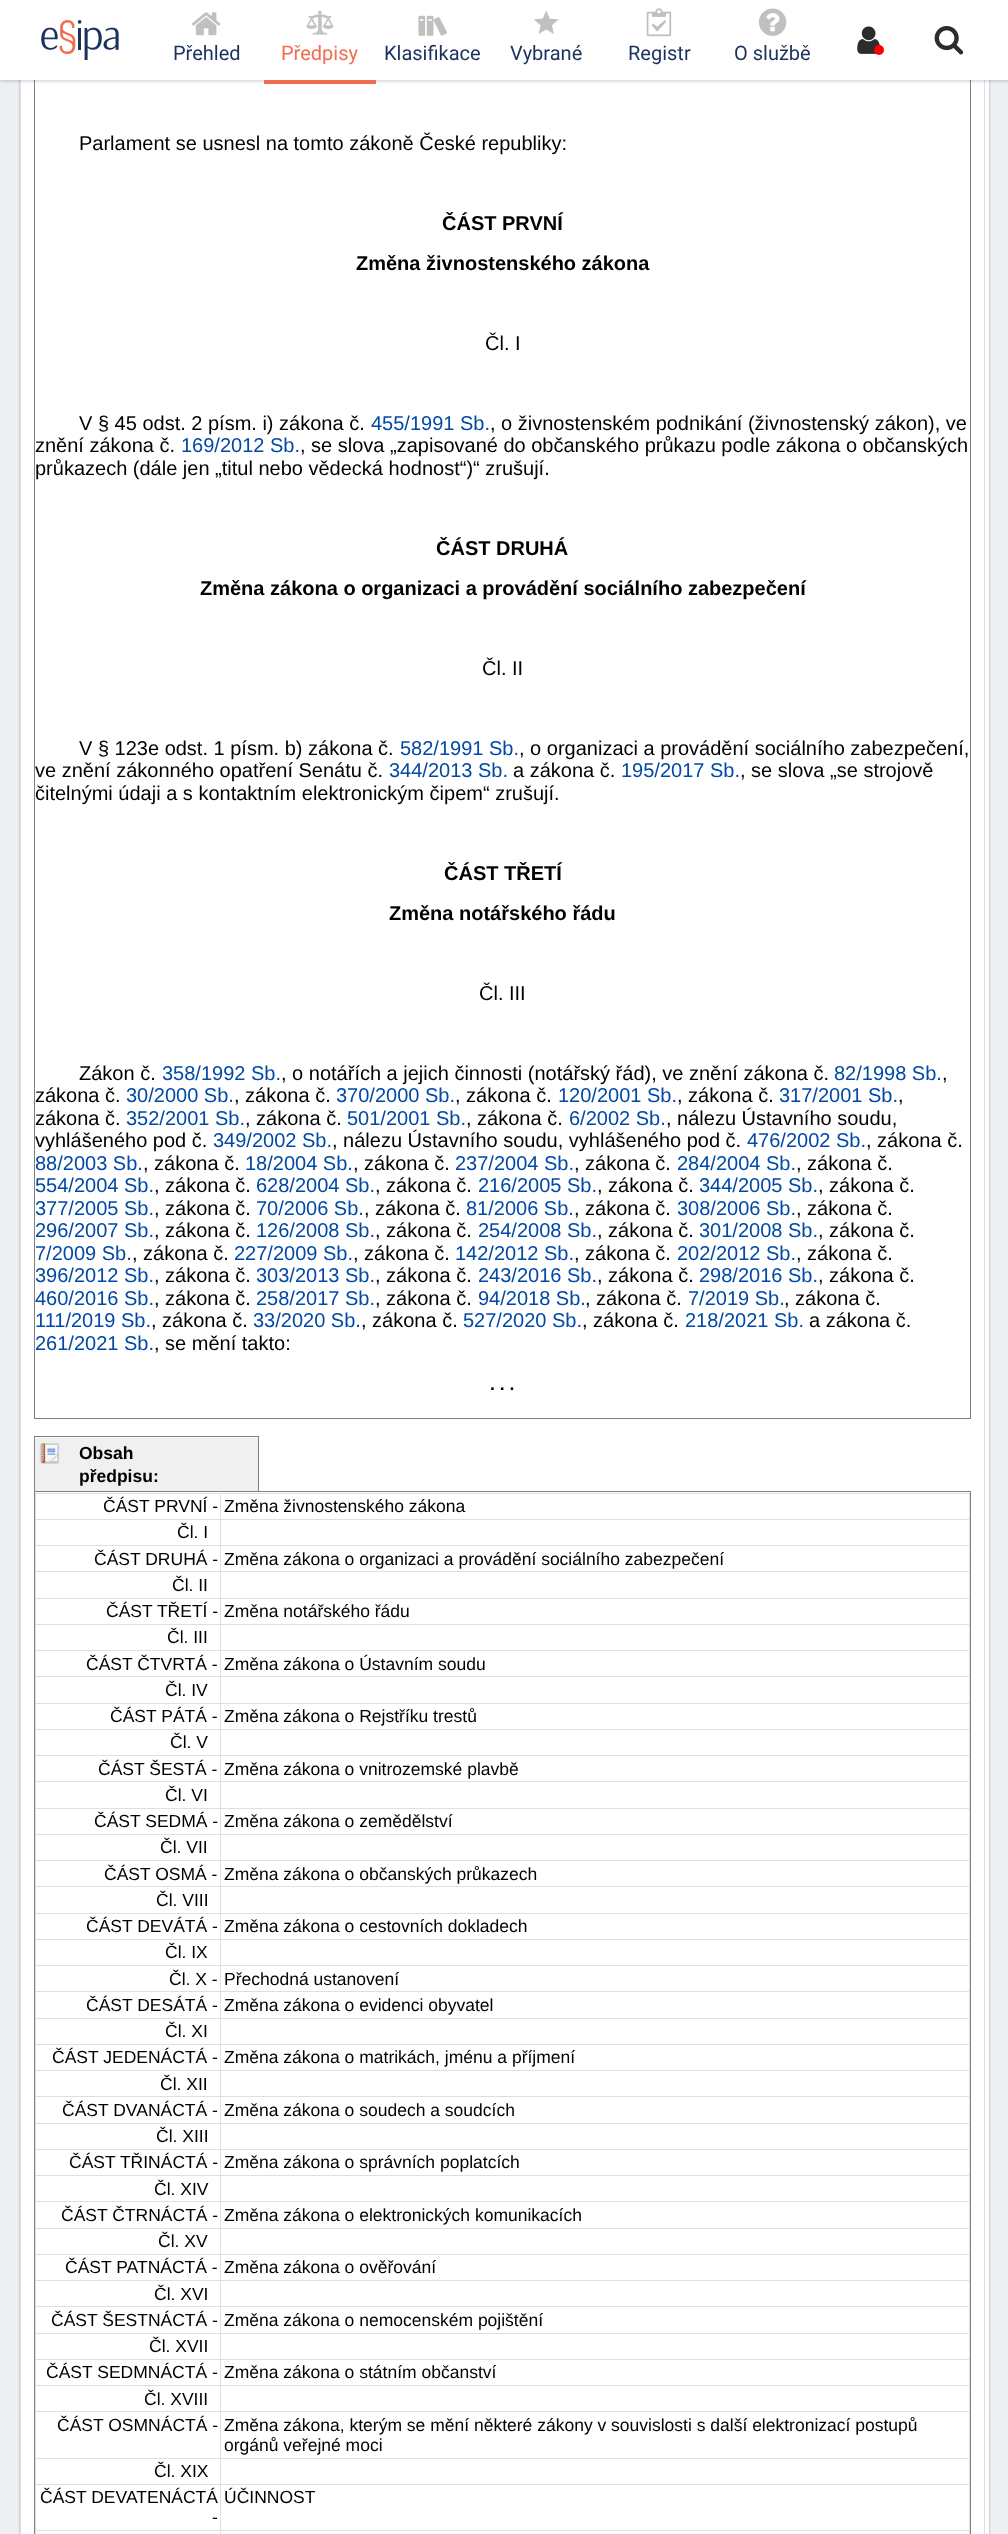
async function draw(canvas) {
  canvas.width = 1008
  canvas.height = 2534
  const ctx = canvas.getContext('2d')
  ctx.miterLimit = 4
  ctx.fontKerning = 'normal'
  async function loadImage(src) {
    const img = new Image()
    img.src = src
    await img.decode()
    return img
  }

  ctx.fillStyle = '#edeff2'
  ctx.fillRect(0, 0, 1008, 2534)
  ctx.fillStyle = '#1b325f66'
  ctx.filter = 'blur(1px)'
  ctx.beginPath()
  ctx.rect(20, -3, 969, 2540)
  ctx.fill()
  ctx.filter = 'none'
  ctx.fillStyle = '#fff'
  ctx.fillRect(21, 80, 968, 2454)
  ctx.fillStyle = '#dfdfdf'
  ctx.beginPath()
  ctx.moveTo(985, -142)
  ctx.lineTo(985, 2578)
  ctx.lineTo(984, 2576)
  ctx.lineTo(984, -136)
  ctx.closePath()
  ctx.fill()
  ctx.beginPath()
  ctx.moveTo(20, 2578)
  ctx.lineTo(20, -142)
  ctx.lineTo(21, -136)
  ctx.lineTo(21, 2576)
  ctx.closePath()
  ctx.fill()
  ctx.strokeStyle = '#808080'
  ctx.strokeRect(34.5, -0.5, 936, 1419)
  ctx.fillStyle = '#1b325f66'
  ctx.filter = 'blur(2px)'
  ctx.beginPath()
  ctx.rect(0, 0, 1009, 80)
  ctx.fill()
  ctx.filter = 'none'
  ctx.fillStyle = '#fff'
  ctx.fillRect(0, 0, 1008, 80)
  ctx.drawImage(await loadImage('image0.png'), 41, 20, 78, 40)
  ctx.drawImage(await loadImage('image1.png'), 191, 12, 30, 24)
  ctx.font = '20px Roboto'
  ctx.fillStyle = '#1b325f'
  ctx.fillText('Přehled', 173, 60)
  ctx.fillStyle = '#f26c4f'
  ctx.fillRect(264, 80, 112, 4)
  ctx.drawImage(await loadImage('image2.png'), 306, 10, 28, 25)
  ctx.fillText('Předpisy', 281, 60)
  ctx.drawImage(await loadImage('image3.png'), 418, 15, 29, 21)
  ctx.fillStyle = '#1b325f'
  ctx.fillText('Klasifikace', 384, 60)
  ctx.drawImage(await loadImage('image4.png'), 534, 10, 25, 24)
  ctx.fillText('Vybrané', 510, 60)
  ctx.drawImage(await loadImage('image5.png'), 646, 8, 26, 29)
  ctx.fillText('Registr', 628, 60)
  ctx.drawImage(await loadImage('image6.png'), 758, 8, 29, 28)
  ctx.fillText('O službě', 734, 60)
  ctx.drawImage(await loadImage('image7.png'), 857, 26, 23, 28)
  ctx.fillStyle = '#f00'
  ctx.beginPath()
  ctx.arc(879, 50, 5, 0, 2 * Math.PI)
  ctx.fill()
  ctx.drawImage(await loadImage('image8.png'), 934, 26, 30, 29)
  ctx.font = '20px Liberation Sans'
  ctx.fillStyle = '#000'
  ctx.fillText('Parlament se usnesl na tomto zákoně České republiky:', 79, 150)
  ctx.font = 'bold 20px Liberation Sans'
  ctx.fillText('ČÁST PRVNÍ', 442, 230)
  ctx.fillText('Změna živnostenského zákona', 356, 270)
  ctx.font = '20px Liberation Sans'
  ctx.fillText('Čl. I', 485, 350)
  ctx.fillText('V § 45 odst. 2 písm. i) zákona č.', 79, 430)
  ctx.fillStyle = '#0049a7'
  ctx.fillText('455/1991 Sb.', 371, 430)
  ctx.fillStyle = '#000'
  ctx.fillText(', o živnostenském podnikání (živnostenský zákon), ve', 490, 430)
  ctx.fillText('znění zákona č.', 35, 452)
  ctx.fillStyle = '#0049a7'
  ctx.fillText('169/2012 Sb.', 181, 452)
  ctx.fillStyle = '#000'
  ctx.fillText(', se slova „zapisované do občanského průkazu podle zákona o občanských', 300, 452)
  ctx.fillText('průkazech (dále jen „titul nebo vědecká hodnost“)“ zrušují.', 35, 475)
  ctx.font = 'bold 20px Liberation Sans'
  ctx.fillText('ČÁST DRUHÁ', 436, 555)
  ctx.fillText('Změna zákona o organizaci a provádění sociálního zabezpečení', 200, 595)
  ctx.font = '20px Liberation Sans'
  ctx.fillText('Čl. II', 482, 675)
  ctx.fillText('V § 123e odst. 1 písm. b) zákona č.', 79, 755)
  ctx.fillStyle = '#0049a7'
  ctx.fillText('582/1991 Sb.', 400, 755)
  ctx.fillStyle = '#000'
  ctx.fillText(', o organizaci a provádění sociálního zabezpečení,', 519, 755)
  ctx.fillText('ve znění zákonného opatření Senátu č.', 35, 777)
  ctx.fillStyle = '#0049a7'
  ctx.fillText('344/2013 Sb.', 389, 777)
  ctx.fillStyle = '#000'
  ctx.fillText('a zákona č.', 513, 777)
  ctx.fillStyle = '#0049a7'
  ctx.fillText('195/2017 Sb.', 621, 777)
  ctx.fillStyle = '#000'
  ctx.fillText(', se slova „se strojově', 740, 777)
  ctx.fillText('čitelnými údaji a s kontaktním elektronickým čipem“ zrušují.', 35, 800)
  ctx.font = 'bold 20px Liberation Sans'
  ctx.fillText('ČÁST TŘETÍ', 444, 880)
  ctx.fillText('Změna notářského řádu', 389, 920)
  ctx.font = '20px Liberation Sans'
  ctx.fillText('Čl. III', 479, 1000)
  ctx.fillText('Zákon č.', 79, 1080)
  ctx.fillStyle = '#0049a7'
  ctx.fillText('358/1992 Sb.', 162, 1080)
  ctx.fillStyle = '#000'
  ctx.fillText(', o notářích a jejich činnosti (notářský řád), ve znění zákona č.', 281, 1080)
  ctx.fillStyle = '#0049a7'
  ctx.fillText('82/1998 Sb.', 834, 1080)
  ctx.fillStyle = '#000'
  ctx.fillText(',', 942, 1080)
  ctx.fillText('zákona č.', 35, 1102)
  ctx.fillStyle = '#0049a7'
  ctx.fillText('30/2000 Sb.', 126, 1102)
  ctx.fillStyle = '#000'
  ctx.fillText(', zákona č.', 234, 1102)
  ctx.fillStyle = '#0049a7'
  ctx.fillText('370/2000 Sb.', 336, 1102)
  ctx.fillStyle = '#000'
  ctx.fillText(', zákona č.', 455, 1102)
  ctx.fillStyle = '#0049a7'
  ctx.fillText('120/2001 Sb.', 558, 1102)
  ctx.fillStyle = '#000'
  ctx.fillText(', zákona č.', 677, 1102)
  ctx.fillStyle = '#0049a7'
  ctx.fillText('317/2001 Sb.', 779, 1102)
  ctx.fillStyle = '#000'
  ctx.fillText(',', 898, 1102)
  ctx.fillText('zákona č.', 35, 1125)
  ctx.fillStyle = '#0049a7'
  ctx.fillText('352/2001 Sb.', 126, 1125)
  ctx.fillStyle = '#000'
  ctx.fillText(', zákona č.', 245, 1125)
  ctx.fillStyle = '#0049a7'
  ctx.fillText('501/2001 Sb.', 347, 1125)
  ctx.fillStyle = '#000'
  ctx.fillText(', zákona č.', 466, 1125)
  ctx.fillStyle = '#0049a7'
  ctx.fillText('6/2002 Sb.', 569, 1125)
  ctx.fillStyle = '#000'
  ctx.fillText(', nálezu Ústavního soudu,', 666, 1125)
  ctx.fillText('vyhlášeného pod č.', 35, 1147)
  ctx.fillStyle = '#0049a7'
  ctx.fillText('349/2002 Sb.', 213, 1147)
  ctx.fillStyle = '#000'
  ctx.fillText(', nálezu Ústavního soudu, vyhlášeného pod č.', 332, 1147)
  ctx.fillStyle = '#0049a7'
  ctx.fillText('476/2002 Sb.', 747, 1147)
  ctx.fillStyle = '#000'
  ctx.fillText(', zákona č.', 866, 1147)
  ctx.fillStyle = '#0049a7'
  ctx.fillText('88/2003 Sb.', 35, 1170)
  ctx.fillStyle = '#000'
  ctx.fillText(', zákona č.', 143, 1170)
  ctx.fillStyle = '#0049a7'
  ctx.fillText('18/2004 Sb.', 245, 1170)
  ctx.fillStyle = '#000'
  ctx.fillText(', zákona č.', 353, 1170)
  ctx.fillStyle = '#0049a7'
  ctx.fillText('237/2004 Sb.', 455, 1170)
  ctx.fillStyle = '#000'
  ctx.fillText(', zákona č.', 574, 1170)
  ctx.fillStyle = '#0049a7'
  ctx.fillText('284/2004 Sb.', 677, 1170)
  ctx.fillStyle = '#000'
  ctx.fillText(', zákona č.', 796, 1170)
  ctx.fillStyle = '#0049a7'
  ctx.fillText('554/2004 Sb.', 35, 1192)
  ctx.fillStyle = '#000'
  ctx.fillText(', zákona č.', 154, 1192)
  ctx.fillStyle = '#0049a7'
  ctx.fillText('628/2004 Sb.', 256, 1192)
  ctx.fillStyle = '#000'
  ctx.fillText(', zákona č.', 375, 1192)
  ctx.fillStyle = '#0049a7'
  ctx.fillText('216/2005 Sb.', 478, 1192)
  ctx.fillStyle = '#000'
  ctx.fillText(', zákona č.', 597, 1192)
  ctx.fillStyle = '#0049a7'
  ctx.fillText('344/2005 Sb.', 699, 1192)
  ctx.fillStyle = '#000'
  ctx.fillText(', zákona č.', 818, 1192)
  ctx.fillStyle = '#0049a7'
  ctx.fillText('377/2005 Sb.', 35, 1215)
  ctx.fillStyle = '#000'
  ctx.fillText(', zákona č.', 154, 1215)
  ctx.fillStyle = '#0049a7'
  ctx.fillText('70/2006 Sb.', 256, 1215)
  ctx.fillStyle = '#000'
  ctx.fillText(', zákona č.', 364, 1215)
  ctx.fillStyle = '#0049a7'
  ctx.fillText('81/2006 Sb.', 466, 1215)
  ctx.fillStyle = '#000'
  ctx.fillText(', zákona č.', 574, 1215)
  ctx.fillStyle = '#0049a7'
  ctx.fillText('308/2006 Sb.', 677, 1215)
  ctx.fillStyle = '#000'
  ctx.fillText(', zákona č.', 796, 1215)
  ctx.fillStyle = '#0049a7'
  ctx.fillText('296/2007 Sb.', 35, 1237)
  ctx.fillStyle = '#000'
  ctx.fillText(', zákona č.', 154, 1237)
  ctx.fillStyle = '#0049a7'
  ctx.fillText('126/2008 Sb.', 256, 1237)
  ctx.fillStyle = '#000'
  ctx.fillText(', zákona č.', 375, 1237)
  ctx.fillStyle = '#0049a7'
  ctx.fillText('254/2008 Sb.', 478, 1237)
  ctx.fillStyle = '#000'
  ctx.fillText(', zákona č.', 597, 1237)
  ctx.fillStyle = '#0049a7'
  ctx.fillText('301/2008 Sb.', 699, 1237)
  ctx.fillStyle = '#000'
  ctx.fillText(', zákona č.', 818, 1237)
  ctx.fillStyle = '#0049a7'
  ctx.fillText('7/2009 Sb.', 35, 1260)
  ctx.fillStyle = '#000'
  ctx.fillText(', zákona č.', 132, 1260)
  ctx.fillStyle = '#0049a7'
  ctx.fillText('227/2009 Sb.', 234, 1260)
  ctx.fillStyle = '#000'
  ctx.fillText(', zákona č.', 353, 1260)
  ctx.fillStyle = '#0049a7'
  ctx.fillText('142/2012 Sb.', 455, 1260)
  ctx.fillStyle = '#000'
  ctx.fillText(', zákona č.', 574, 1260)
  ctx.fillStyle = '#0049a7'
  ctx.fillText('202/2012 Sb.', 677, 1260)
  ctx.fillStyle = '#000'
  ctx.fillText(', zákona č.', 796, 1260)
  ctx.fillStyle = '#0049a7'
  ctx.fillText('396/2012 Sb.', 35, 1282)
  ctx.fillStyle = '#000'
  ctx.fillText(', zákona č.', 154, 1282)
  ctx.fillStyle = '#0049a7'
  ctx.fillText('303/2013 Sb.', 256, 1282)
  ctx.fillStyle = '#000'
  ctx.fillText(', zákona č.', 375, 1282)
  ctx.fillStyle = '#0049a7'
  ctx.fillText('243/2016 Sb.', 478, 1282)
  ctx.fillStyle = '#000'
  ctx.fillText(', zákona č.', 597, 1282)
  ctx.fillStyle = '#0049a7'
  ctx.fillText('298/2016 Sb.', 699, 1282)
  ctx.fillStyle = '#000'
  ctx.fillText(', zákona č.', 818, 1282)
  ctx.fillStyle = '#0049a7'
  ctx.fillText('460/2016 Sb.', 35, 1305)
  ctx.fillStyle = '#000'
  ctx.fillText(', zákona č.', 154, 1305)
  ctx.fillStyle = '#0049a7'
  ctx.fillText('258/2017 Sb.', 256, 1305)
  ctx.fillStyle = '#000'
  ctx.fillText(', zákona č.', 375, 1305)
  ctx.fillStyle = '#0049a7'
  ctx.fillText('94/2018 Sb.', 478, 1305)
  ctx.fillStyle = '#000'
  ctx.fillText(', zákona č.', 585, 1305)
  ctx.fillStyle = '#0049a7'
  ctx.fillText('7/2019 Sb.', 688, 1305)
  ctx.fillStyle = '#000'
  ctx.fillText(', zákona č.', 784, 1305)
  ctx.fillStyle = '#0049a7'
  ctx.fillText('111/2019 Sb.', 35, 1327)
  ctx.fillStyle = '#000'
  ctx.fillText(', zákona č.', 151, 1327)
  ctx.fillStyle = '#0049a7'
  ctx.fillText('33/2020 Sb.', 253, 1327)
  ctx.fillStyle = '#000'
  ctx.fillText(', zákona č.', 361, 1327)
  ctx.fillStyle = '#0049a7'
  ctx.fillText('527/2020 Sb.', 463, 1327)
  ctx.fillStyle = '#000'
  ctx.fillText(', zákona č.', 582, 1327)
  ctx.fillStyle = '#0049a7'
  ctx.fillText('218/2021 Sb.', 685, 1327)
  ctx.fillStyle = '#000'
  ctx.fillText('a zákona č.', 809, 1327)
  ctx.fillStyle = '#0049a7'
  ctx.fillText('261/2021 Sb.', 35, 1350)
  ctx.fillStyle = '#000'
  ctx.fillText(', se mění takto:', 154, 1350)
  ctx.font = 'bold 17.5px Liberation Sans'
  ctx.fillText('. . .', 490, 1390)
  ctx.fillStyle = '#f0f0f0'
  ctx.fillRect(35, 1438, 223, 53)
  ctx.drawImage(await loadImage('image9.png'), 39, 1443, 20, 21)
  ctx.fillStyle = '#808080'
  ctx.fillRect(34, 1436, 225, 1)
  ctx.fillRect(258, 1436, 1, 55)
  ctx.fillRect(34, 1436, 1, 55)
  ctx.fillStyle = '#000'
  ctx.fillText('Obsah', 79, 1459)
  ctx.fillText('předpisu:', 79, 1482)
  ctx.strokeRect(34.5, 1491.5, 936, 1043)
  ctx.fillStyle = '#dfdfdf'
  ctx.fillRect(220, 1493, 750, 1)
  ctx.fillRect(220, 1519, 750, 1)
  ctx.fillRect(220, 1545, 750, 1)
  ctx.fillRect(220, 1571, 750, 1)
  ctx.fillRect(220, 1598, 750, 1)
  ctx.fillRect(220, 1624, 750, 1)
  ctx.fillRect(220, 1650, 750, 1)
  ctx.fillRect(220, 1676, 750, 1)
  ctx.fillRect(220, 1703, 750, 1)
  ctx.fillRect(220, 1729, 750, 1)
  ctx.fillRect(220, 1755, 750, 1)
  ctx.fillRect(220, 1781, 750, 1)
  ctx.fillRect(220, 1808, 750, 1)
  ctx.fillRect(220, 1834, 750, 1)
  ctx.fillRect(220, 1860, 750, 1)
  ctx.fillRect(220, 1886, 750, 1)
  ctx.fillRect(220, 1913, 750, 1)
  ctx.fillRect(220, 1939, 750, 1)
  ctx.fillRect(220, 1965, 750, 1)
  ctx.fillRect(220, 1991, 750, 1)
  ctx.fillRect(220, 2018, 750, 1)
  ctx.fillRect(220, 2044, 750, 1)
  ctx.fillRect(220, 2070, 750, 1)
  ctx.fillRect(220, 2096, 750, 1)
  ctx.fillRect(220, 2123, 750, 1)
  ctx.fillRect(220, 2149, 750, 1)
  ctx.fillRect(220, 2175, 750, 1)
  ctx.fillRect(220, 2201, 750, 1)
  ctx.fillRect(220, 2228, 750, 1)
  ctx.fillRect(220, 2254, 750, 1)
  ctx.fillRect(220, 2280, 750, 1)
  ctx.fillRect(220, 2306, 750, 1)
  ctx.fillRect(220, 2333, 750, 1)
  ctx.fillRect(220, 2359, 750, 1)
  ctx.fillRect(220, 2385, 750, 1)
  ctx.fillRect(220, 2411, 750, 1)
  ctx.fillRect(220, 2458, 750, 1)
  ctx.fillRect(220, 2484, 750, 1)
  ctx.fillRect(220, 2530, 750, 1)
  ctx.fillRect(220, 2530, 1, 4)
  ctx.fillRect(35, 2530, 186, 1)
  ctx.fillRect(220, 2484, 1, 47)
  ctx.fillRect(35, 2484, 186, 1)
  ctx.fillRect(220, 2458, 1, 27)
  ctx.fillRect(35, 2458, 186, 1)
  ctx.fillRect(220, 2411, 1, 48)
  ctx.fillRect(35, 2411, 186, 1)
  ctx.fillRect(220, 2385, 1, 28)
  ctx.fillRect(35, 2385, 186, 1)
  ctx.fillRect(220, 2359, 1, 27)
  ctx.fillRect(35, 2359, 186, 1)
  ctx.fillRect(220, 2333, 1, 27)
  ctx.fillRect(35, 2333, 186, 1)
  ctx.fillRect(220, 2306, 1, 28)
  ctx.fillRect(35, 2306, 186, 1)
  ctx.fillRect(220, 2280, 1, 28)
  ctx.fillRect(35, 2280, 186, 1)
  ctx.fillRect(220, 2254, 1, 27)
  ctx.fillRect(35, 2254, 186, 1)
  ctx.fillRect(220, 2228, 1, 27)
  ctx.fillRect(35, 2228, 186, 1)
  ctx.fillRect(220, 2201, 1, 28)
  ctx.fillRect(35, 2201, 186, 1)
  ctx.fillRect(220, 2175, 1, 28)
  ctx.fillRect(35, 2175, 186, 1)
  ctx.fillRect(220, 2149, 1, 27)
  ctx.fillRect(35, 2149, 186, 1)
  ctx.fillRect(220, 2123, 1, 27)
  ctx.fillRect(35, 2123, 186, 1)
  ctx.fillRect(220, 2096, 1, 28)
  ctx.fillRect(35, 2096, 186, 1)
  ctx.fillRect(220, 2070, 1, 28)
  ctx.fillRect(35, 2070, 186, 1)
  ctx.fillRect(220, 2044, 1, 27)
  ctx.fillRect(35, 2044, 186, 1)
  ctx.fillRect(220, 2018, 1, 27)
  ctx.fillRect(35, 2018, 186, 1)
  ctx.fillRect(220, 1991, 1, 28)
  ctx.fillRect(35, 1991, 186, 1)
  ctx.fillRect(220, 1965, 1, 28)
  ctx.fillRect(35, 1965, 186, 1)
  ctx.fillRect(220, 1939, 1, 27)
  ctx.fillRect(35, 1939, 186, 1)
  ctx.fillRect(220, 1913, 1, 27)
  ctx.fillRect(35, 1913, 186, 1)
  ctx.fillRect(220, 1886, 1, 28)
  ctx.fillRect(35, 1886, 186, 1)
  ctx.fillRect(220, 1860, 1, 28)
  ctx.fillRect(35, 1860, 186, 1)
  ctx.fillRect(220, 1834, 1, 27)
  ctx.fillRect(35, 1834, 186, 1)
  ctx.fillRect(220, 1808, 1, 27)
  ctx.fillRect(35, 1808, 186, 1)
  ctx.fillRect(220, 1781, 1, 28)
  ctx.fillRect(35, 1781, 186, 1)
  ctx.fillRect(220, 1755, 1, 28)
  ctx.fillRect(35, 1755, 186, 1)
  ctx.fillRect(220, 1729, 1, 27)
  ctx.fillRect(35, 1729, 186, 1)
  ctx.fillRect(220, 1703, 1, 27)
  ctx.fillRect(35, 1703, 186, 1)
  ctx.fillRect(220, 1676, 1, 28)
  ctx.fillRect(35, 1676, 186, 1)
  ctx.fillRect(220, 1650, 1, 28)
  ctx.fillRect(35, 1650, 186, 1)
  ctx.fillRect(220, 1624, 1, 27)
  ctx.fillRect(35, 1624, 186, 1)
  ctx.fillRect(220, 1598, 1, 27)
  ctx.fillRect(35, 1598, 186, 1)
  ctx.fillRect(220, 1571, 1, 28)
  ctx.fillRect(35, 1571, 186, 1)
  ctx.fillRect(220, 1545, 1, 28)
  ctx.fillRect(35, 1545, 186, 1)
  ctx.fillRect(220, 1519, 1, 27)
  ctx.fillRect(35, 1519, 186, 1)
  ctx.fillRect(220, 1493, 1, 27)
  ctx.fillRect(35, 1493, 186, 1)
  ctx.fillRect(35, 2530, 1, 4)
  ctx.fillRect(35, 2484, 1, 47)
  ctx.fillRect(35, 2458, 1, 27)
  ctx.fillRect(35, 2411, 1, 48)
  ctx.fillRect(35, 2385, 1, 28)
  ctx.fillRect(35, 2359, 1, 27)
  ctx.fillRect(35, 2333, 1, 27)
  ctx.fillRect(35, 2306, 1, 28)
  ctx.fillRect(35, 2280, 1, 28)
  ctx.fillRect(35, 2254, 1, 27)
  ctx.fillRect(35, 2228, 1, 27)
  ctx.fillRect(35, 2201, 1, 28)
  ctx.fillRect(35, 2175, 1, 28)
  ctx.fillRect(35, 2149, 1, 27)
  ctx.fillRect(35, 2123, 1, 27)
  ctx.fillRect(35, 2096, 1, 28)
  ctx.fillRect(35, 2070, 1, 28)
  ctx.fillRect(35, 2044, 1, 27)
  ctx.fillRect(35, 2018, 1, 27)
  ctx.fillRect(35, 1991, 1, 28)
  ctx.fillRect(35, 1965, 1, 28)
  ctx.fillRect(35, 1939, 1, 27)
  ctx.fillRect(35, 1913, 1, 27)
  ctx.fillRect(35, 1886, 1, 28)
  ctx.fillRect(35, 1860, 1, 28)
  ctx.fillRect(35, 1834, 1, 27)
  ctx.fillRect(35, 1808, 1, 27)
  ctx.fillRect(35, 1781, 1, 28)
  ctx.fillRect(35, 1755, 1, 28)
  ctx.fillRect(35, 1729, 1, 27)
  ctx.fillRect(35, 1703, 1, 27)
  ctx.fillRect(35, 1676, 1, 28)
  ctx.fillRect(35, 1650, 1, 28)
  ctx.fillRect(35, 1624, 1, 27)
  ctx.fillRect(35, 1598, 1, 27)
  ctx.fillRect(35, 1571, 1, 28)
  ctx.fillRect(35, 1545, 1, 28)
  ctx.fillRect(35, 1519, 1, 27)
  ctx.fillRect(35, 1493, 1, 27)
  ctx.font = '17.5px Liberation Sans'
  ctx.fillStyle = '#000'
  ctx.fillText('ČÁST PRVNÍ -', 103, 1512)
  ctx.fillStyle = '#dfdfdf'
  ctx.fillRect(969, 2530, 1, 4)
  ctx.fillRect(969, 2484, 1, 47)
  ctx.fillRect(969, 2458, 1, 27)
  ctx.fillRect(969, 2411, 1, 48)
  ctx.fillRect(969, 2385, 1, 28)
  ctx.fillRect(969, 2359, 1, 27)
  ctx.fillRect(969, 2333, 1, 27)
  ctx.fillRect(969, 2306, 1, 28)
  ctx.fillRect(969, 2280, 1, 28)
  ctx.fillRect(969, 2254, 1, 27)
  ctx.fillRect(969, 2228, 1, 27)
  ctx.fillRect(969, 2201, 1, 28)
  ctx.fillRect(969, 2175, 1, 28)
  ctx.fillRect(969, 2149, 1, 27)
  ctx.fillRect(969, 2123, 1, 27)
  ctx.fillRect(969, 2096, 1, 28)
  ctx.fillRect(969, 2070, 1, 28)
  ctx.fillRect(969, 2044, 1, 27)
  ctx.fillRect(969, 2018, 1, 27)
  ctx.fillRect(969, 1991, 1, 28)
  ctx.fillRect(969, 1965, 1, 28)
  ctx.fillRect(969, 1939, 1, 27)
  ctx.fillRect(969, 1913, 1, 27)
  ctx.fillRect(969, 1886, 1, 28)
  ctx.fillRect(969, 1860, 1, 28)
  ctx.fillRect(969, 1834, 1, 27)
  ctx.fillRect(969, 1808, 1, 27)
  ctx.fillRect(969, 1781, 1, 28)
  ctx.fillRect(969, 1755, 1, 28)
  ctx.fillRect(969, 1729, 1, 27)
  ctx.fillRect(969, 1703, 1, 27)
  ctx.fillRect(969, 1676, 1, 28)
  ctx.fillRect(969, 1650, 1, 28)
  ctx.fillRect(969, 1624, 1, 27)
  ctx.fillRect(969, 1598, 1, 27)
  ctx.fillRect(969, 1571, 1, 28)
  ctx.fillRect(969, 1545, 1, 28)
  ctx.fillRect(969, 1519, 1, 27)
  ctx.fillRect(969, 1493, 1, 27)
  ctx.fillStyle = '#000'
  ctx.fillText('Změna živnostenského zákona', 224, 1512)
  ctx.fillText('Čl. I', 177, 1538)
  ctx.fillText('ČÁST DRUHÁ -', 94, 1565)
  ctx.fillText('Změna zákona o organizaci a provádění sociálního zabezpečení', 224, 1565)
  ctx.fillText('Čl. II', 172, 1591)
  ctx.fillText('ČÁST TŘETÍ -', 106, 1617)
  ctx.fillText('Změna notářského řádu', 224, 1617)
  ctx.fillText('Čl. III', 167, 1643)
  ctx.fillText('ČÁST ČTVRTÁ -', 86, 1670)
  ctx.fillText('Změna zákona o Ústavním soudu', 224, 1670)
  ctx.fillText('Čl. IV', 165, 1696)
  ctx.fillText('ČÁST PÁTÁ -', 110, 1722)
  ctx.fillText('Změna zákona o Rejstříku trestů', 224, 1722)
  ctx.fillText('Čl. V', 170, 1748)
  ctx.fillText('ČÁST ŠESTÁ -', 98, 1775)
  ctx.fillText('Změna zákona o vnitrozemské plavbě', 224, 1775)
  ctx.fillText('Čl. VI', 165, 1801)
  ctx.fillText('ČÁST SEDMÁ -', 94, 1827)
  ctx.fillText('Změna zákona o zemědělství', 224, 1827)
  ctx.fillText('Čl. VII', 160, 1853)
  ctx.fillText('ČÁST OSMÁ -', 104, 1880)
  ctx.fillText('Změna zákona o občanských průkazech', 224, 1880)
  ctx.fillText('Čl. VIII', 156, 1906)
  ctx.fillText('ČÁST DEVÁTÁ -', 86, 1932)
  ctx.fillText('Změna zákona o cestovních dokladech', 224, 1932)
  ctx.fillText('Čl. IX', 165, 1958)
  ctx.fillText('Čl. X -', 169, 1985)
  ctx.fillText('Přechodná ustanovení', 224, 1985)
  ctx.fillText('ČÁST DESÁTÁ -', 86, 2011)
  ctx.fillText('Změna zákona o evidenci obyvatel', 224, 2011)
  ctx.fillText('Čl. XI', 165, 2037)
  ctx.fillText('ČÁST JEDENÁCTÁ -', 52, 2063)
  ctx.fillText('Změna zákona o matrikách, jménu a příjmení', 224, 2063)
  ctx.fillText('Čl. XII', 160, 2090)
  ctx.fillText('ČÁST DVANÁCTÁ -', 62, 2116)
  ctx.fillText('Změna zákona o soudech a soudcích', 224, 2116)
  ctx.fillText('Čl. XIII', 156, 2142)
  ctx.fillText('ČÁST TŘINÁCTÁ -', 69, 2168)
  ctx.fillText('Změna zákona o správních poplatcích', 224, 2168)
  ctx.fillText('Čl. XIV', 154, 2195)
  ctx.fillText('ČÁST ČTRNÁCTÁ -', 61, 2221)
  ctx.fillText('Změna zákona o elektronických komunikacích', 224, 2221)
  ctx.fillText('Čl. XV', 158, 2247)
  ctx.fillText('ČÁST PATNÁCTÁ -', 65, 2273)
  ctx.fillText('Změna zákona o ověřování', 224, 2273)
  ctx.fillText('Čl. XVI', 154, 2300)
  ctx.fillText('ČÁST ŠESTNÁCTÁ -', 51, 2326)
  ctx.fillText('Změna zákona o nemocenském pojištění', 224, 2326)
  ctx.fillText('Čl. XVII', 149, 2352)
  ctx.fillText('ČÁST SEDMNÁCTÁ -', 46, 2378)
  ctx.fillText('Změna zákona o státním občanství', 224, 2378)
  ctx.fillText('Čl. XVIII', 144, 2405)
  ctx.fillText('ČÁST OSMNÁCTÁ -', 57, 2431)
  ctx.fillText('Změna zákona, kterým se mění některé zákony v souvislosti s další elektronizací postupů', 224, 2431)
  ctx.fillText('orgánů veřejné moci', 224, 2451)
  ctx.fillText('Čl. XIX', 154, 2477)
  ctx.fillText('ČÁST DEVATENÁCTÁ', 40, 2503)
  ctx.fillText('-', 212, 2523)
  ctx.fillText('ÚČINNOST', 224, 2503)
}

draw(document.querySelector('canvas'))
